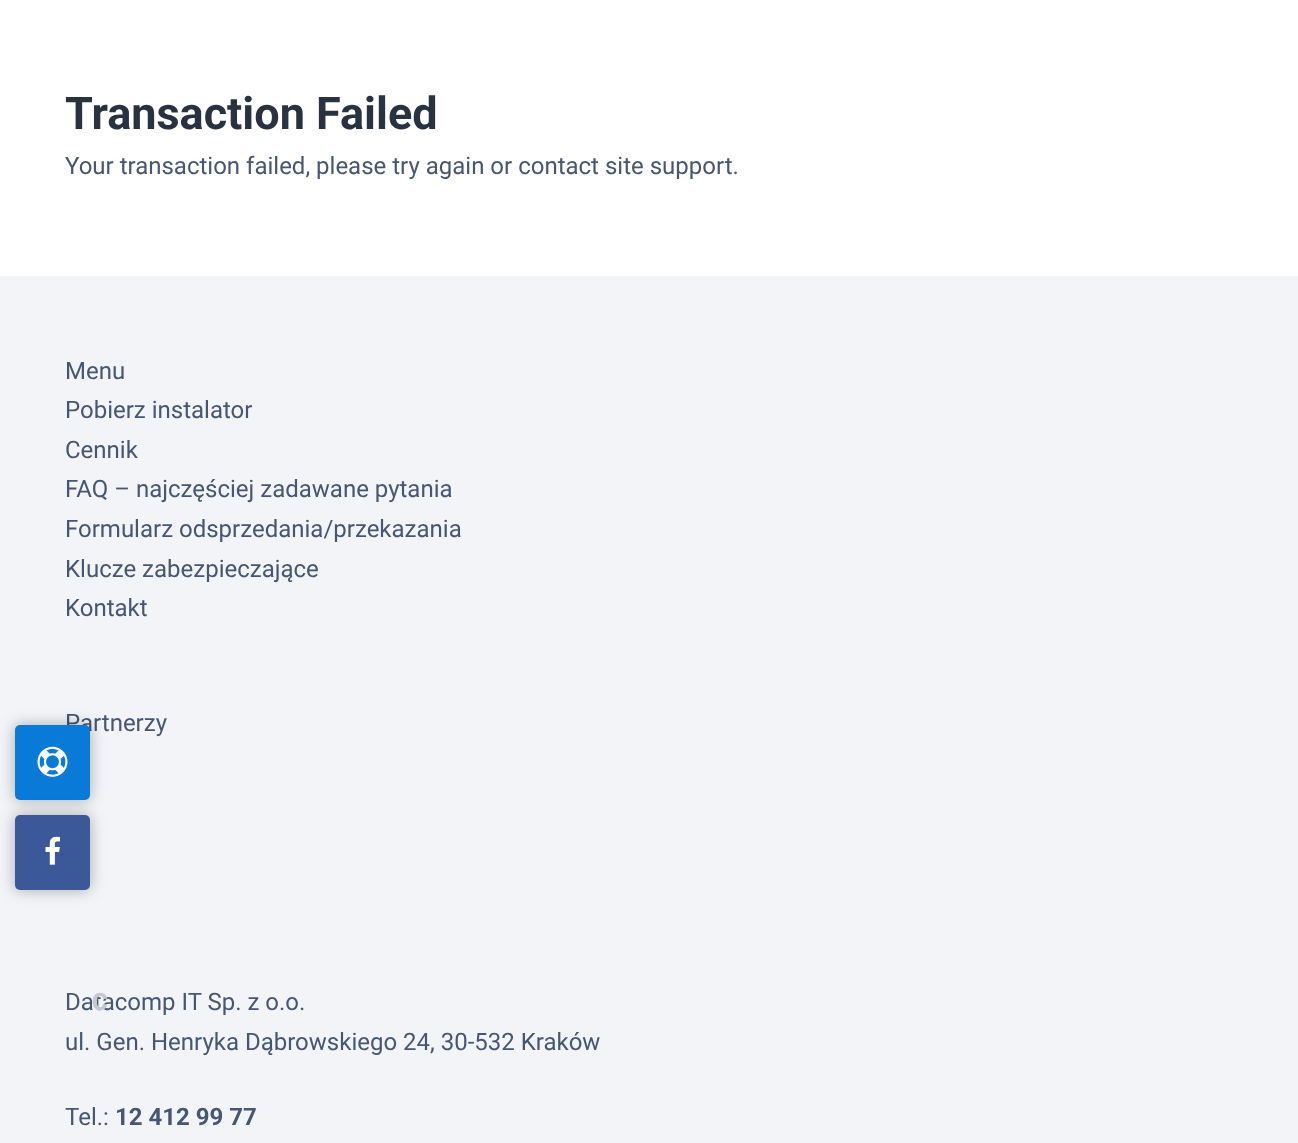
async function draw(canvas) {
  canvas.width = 1298
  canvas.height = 1143
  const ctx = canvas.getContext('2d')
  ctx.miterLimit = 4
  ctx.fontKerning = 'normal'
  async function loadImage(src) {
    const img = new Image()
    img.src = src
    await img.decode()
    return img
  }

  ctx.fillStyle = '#fff'
  ctx.fillRect(0, 0, 1298, 1143)
  ctx.font = 'bold 45px Roboto'
  ctx.fillStyle = '#293241'
  ctx.fillText('Transaction Failed', 65, 129)
  ctx.font = '24px Roboto'
  ctx.fillStyle = '#475671'
  ctx.fillText('Your transaction failed, please try again or contact site support.', 65, 174)
  ctx.fillStyle = '#f3f4f7'
  ctx.fillRect(0, 276, 1298, 867)
  ctx.fillStyle = '#475671'
  ctx.fillText('Menu', 65, 379)
  ctx.fillText('Pobierz instalator', 65, 418)
  ctx.fillText('Cennik', 65, 458)
  ctx.fillText('FAQ – najczęściej zadawane pytania', 65, 497)
  ctx.fillText('Formularz odsprzedania/przekazania', 65, 537)
  ctx.fillText('Klucze zabezpieczające', 65, 577)
  ctx.fillText('Kontakt', 65, 616)
  ctx.fillText('Partnerzy', 65, 731)
  ctx.fillText('Datacomp IT Sp. z o.o.', 65, 1010)
  ctx.fillText('ul. Gen. Henryka Dąbrowskiego 24, 30-532 Kraków', 65, 1050)
  ctx.fillText('Tel.:', 65, 1125)
  ctx.font = 'bold 24px Roboto'
  ctx.fillText('12 412 99 77', 115, 1125)
  ctx.fillStyle = '#0000004d'
  ctx.filter = 'blur(7.5px)'
  ctx.beginPath()
  ctx.roundRect(15, 725, 75, 75, 5)
  ctx.fill()
  ctx.filter = 'none'
  ctx.fillStyle = '#0a7ad9'
  ctx.beginPath()
  ctx.roundRect(15, 725, 75, 75, 5)
  ctx.fill()
  ctx.drawImage(await loadImage('image0.png'), 37, 746, 31, 31)
  ctx.fillStyle = '#0000004d'
  ctx.filter = 'blur(7.5px)'
  ctx.beginPath()
  ctx.roundRect(15, 815, 75, 75, 5)
  ctx.fill()
  ctx.filter = 'none'
  ctx.fillStyle = '#3b5998'
  ctx.beginPath()
  ctx.roundRect(15, 815, 75, 75, 5)
  ctx.fill()
  ctx.drawImage(await loadImage('image1.png'), 45, 836, 15, 29)
  ctx.font = '900 24px Roboto'
  ctx.fillStyle = '#c5c9d3'
  ctx.fillText('C', 92, 1010)
}

draw(document.querySelector('canvas'))
